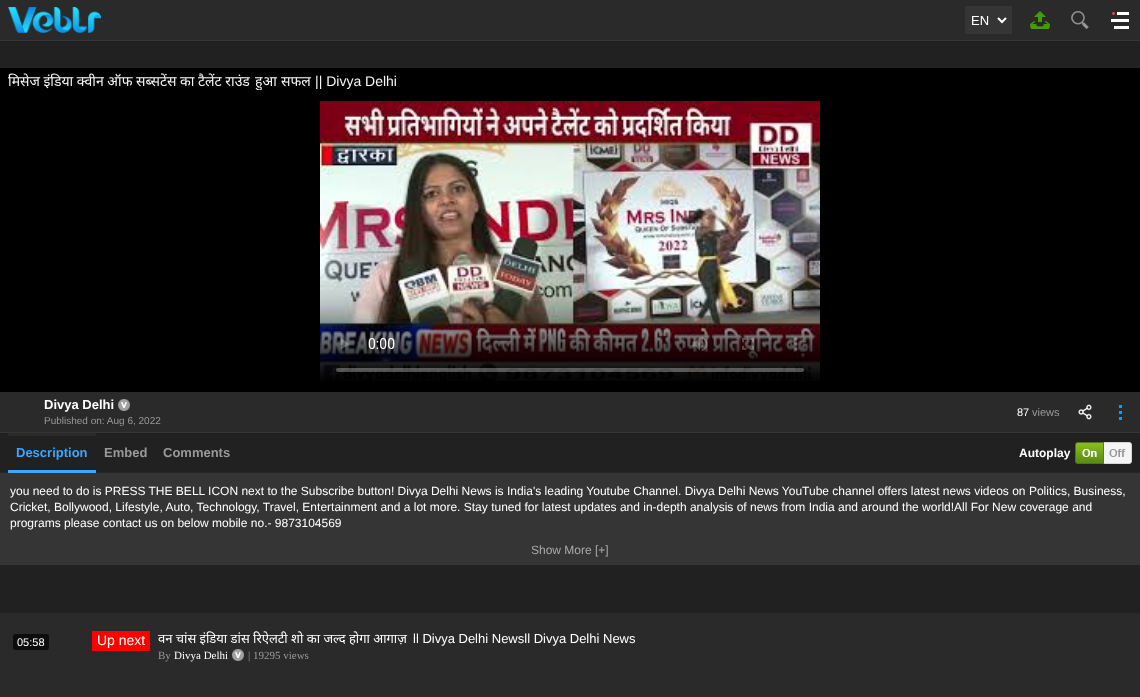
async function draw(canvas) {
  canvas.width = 1140
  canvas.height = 697
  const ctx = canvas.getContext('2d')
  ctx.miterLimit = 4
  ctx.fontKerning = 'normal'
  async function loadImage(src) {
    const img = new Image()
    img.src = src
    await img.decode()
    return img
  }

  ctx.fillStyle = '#212121'
  ctx.fillRect(0, 0, 1140, 697)
  ctx.fillStyle = '#2a2a2a'
  ctx.fillRect(0, 0, 1140, 40)
  ctx.fillStyle = '#353535'
  ctx.fillRect(0, 40, 1140, 1)
  ctx.drawImage(await loadImage('image0.png'), 8, 7, 93, 26)
  ctx.strokeStyle = '#353535'
  ctx.strokeRect(965.5, 6.5, 46, 27)
  ctx.fillRect(966, 7, 45, 26)
  ctx.beginPath()
  ctx.moveTo(998, 18)
  ctx.lineTo(1002, 22)
  ctx.lineTo(1006, 18)
  ctx.strokeStyle = '#fff'
  ctx.lineWidth = 2
  ctx.stroke()
  ctx.font = '13px Liberation Sans'
  ctx.fillStyle = '#fff'
  ctx.fillText('EN', 971, 25)
  ctx.drawImage(await loadImage('image1.png'), 1030, 11, 20, 18)
  ctx.drawImage(await loadImage('image2.png'), 1071, 11, 18, 18)
  ctx.drawImage(await loadImage('image3.png'), 1111, 12, 18, 17)
  ctx.fillStyle = '#000'
  ctx.fillRect(0, 68, 1140, 324)
  ctx.font = '14px Noto Sans'
  ctx.fillStyle = '#f5f5f5'
  ctx.fillText('मिसेज इंडिया क्वीन ऑफ सब्सटेंस का टैलेंट राउंड', 8, 86)
  ctx.save()
  ctx.beginPath()
  ctx.rect(8, 71, 1124, 19)
  ctx.clip()
  ctx.fillText('हुआ', 255, 86)
  ctx.restore()
  ctx.fillText('सफल', 281, 86)
  ctx.font = '14px Liberation Sans'
  ctx.fillText('|| Divya Delhi', 315, 86)
  ctx.drawImage(await loadImage('image4.png'), 320, 101, 500, 280)
  ctx.fillStyle = '#2a2a2a'
  ctx.fillRect(0, 392, 1140, 40)
  ctx.fillStyle = '#353535'
  ctx.fillRect(0, 432, 1140, 1)
  ctx.font = 'bold 13px Liberation Sans'
  ctx.fillStyle = '#fff'
  ctx.fillText('Divya Delhi', 44, 409)
  ctx.drawImage(await loadImage('image5.png'), 118, 399, 12, 12)
  ctx.font = '10px Liberation Sans'
  ctx.fillStyle = '#999'
  ctx.fillText('Published on: Aug 6, 2022', 44, 424)
  ctx.font = '11px Liberation Sans'
  ctx.fillStyle = '#fff'
  ctx.fillText('87', 1017, 416)
  ctx.fillStyle = '#999'
  ctx.fillText('views', 1032, 416)
  ctx.drawImage(await loadImage('image6.png'), 1078, 404, 14, 16)
  ctx.drawImage(await loadImage('image7.png'), 1119, 405, 3, 15)
  ctx.fillStyle = '#2a2a2a'
  ctx.fillRect(8, 433, 88, 3)
  ctx.fillStyle = '#252525'
  ctx.fillRect(0, 472, 1140, 1)
  ctx.fillStyle = '#3ea6ff'
  ctx.fillRect(8, 470, 88, 3)
  ctx.font = 'bold 13px Liberation Sans'
  ctx.fillText('Description', 16, 457)
  ctx.fillStyle = '#999'
  ctx.fillText('Embed', 104, 457)
  ctx.fillText('Comments', 163, 457)
  ctx.font = 'bold 12px Liberation Sans'
  ctx.fillStyle = '#fff'
  ctx.fillText('Autoplay', 1019, 457)
  ctx.drawImage(await loadImage('image8.png'), 1075, 442, 57, 22)
  ctx.fillStyle = '#353535'
  ctx.fillRect(0, 473, 1140, 92)
  ctx.font = '12px Liberation Sans'
  ctx.fillStyle = '#fff'
  ctx.fillText('you need to do is PRESS THE BELL ICON next to the Subscribe button! Divya Delhi News is India\'s leading Youtube Channel. Divya Delhi News YouTube channel offers latest news videos on Politics, Business,', 10, 495)
  ctx.fillText('Cricket, Bollywood, Lifestyle, Auto, Technology, Travel, Entertainment and a lot more. Stay tuned for latest updates and in-depth analysis of news from India and around the world!All For New coverage and', 10, 511)
  ctx.fillText('programs please contact us on below mobile no.- 9873104569', 10, 527)
  ctx.fillStyle = '#aaa'
  ctx.fillText('Show More [+]', 531, 554)
  ctx.fillStyle = '#2a2a2a'
  ctx.fillRect(0, 613, 1140, 84)
  ctx.fillStyle = '#0d0d0d'
  ctx.beginPath()
  ctx.roundRect(13, 634, 36, 16, 3)
  ctx.fill()
  ctx.font = '11px Liberation Sans'
  ctx.fillStyle = '#fff'
  ctx.fillText('05:58', 17, 646)
  ctx.fillStyle = '#f00'
  ctx.fillRect(92, 631, 58, 20)
  ctx.font = '14px Liberation Sans'
  ctx.fillStyle = '#fff'
  ctx.fillText('Up next', 97, 645)
  ctx.font = '13px Noto Sans'
  ctx.fillText('वन चांस इंडिया डांस रिऐलटी शो का जल्द होगा आगाज़', 158, 643)
  ctx.font = '13px Liberation Sans'
  ctx.fillText('ll Divya Delhi Newsll Divya Delhi News', 413, 643)
  ctx.font = '11px Liberation Serif'
  ctx.fillStyle = '#999'
  ctx.fillText('By', 158, 659)
  ctx.fillStyle = '#fff'
  ctx.fillText('Divya Delhi', 174, 659)
  ctx.drawImage(await loadImage('image5.png'), 232, 649, 12, 12)
  ctx.fillStyle = '#999'
  ctx.fillText('| 19295 views', 248, 659)
}

draw(document.querySelector('canvas'))
